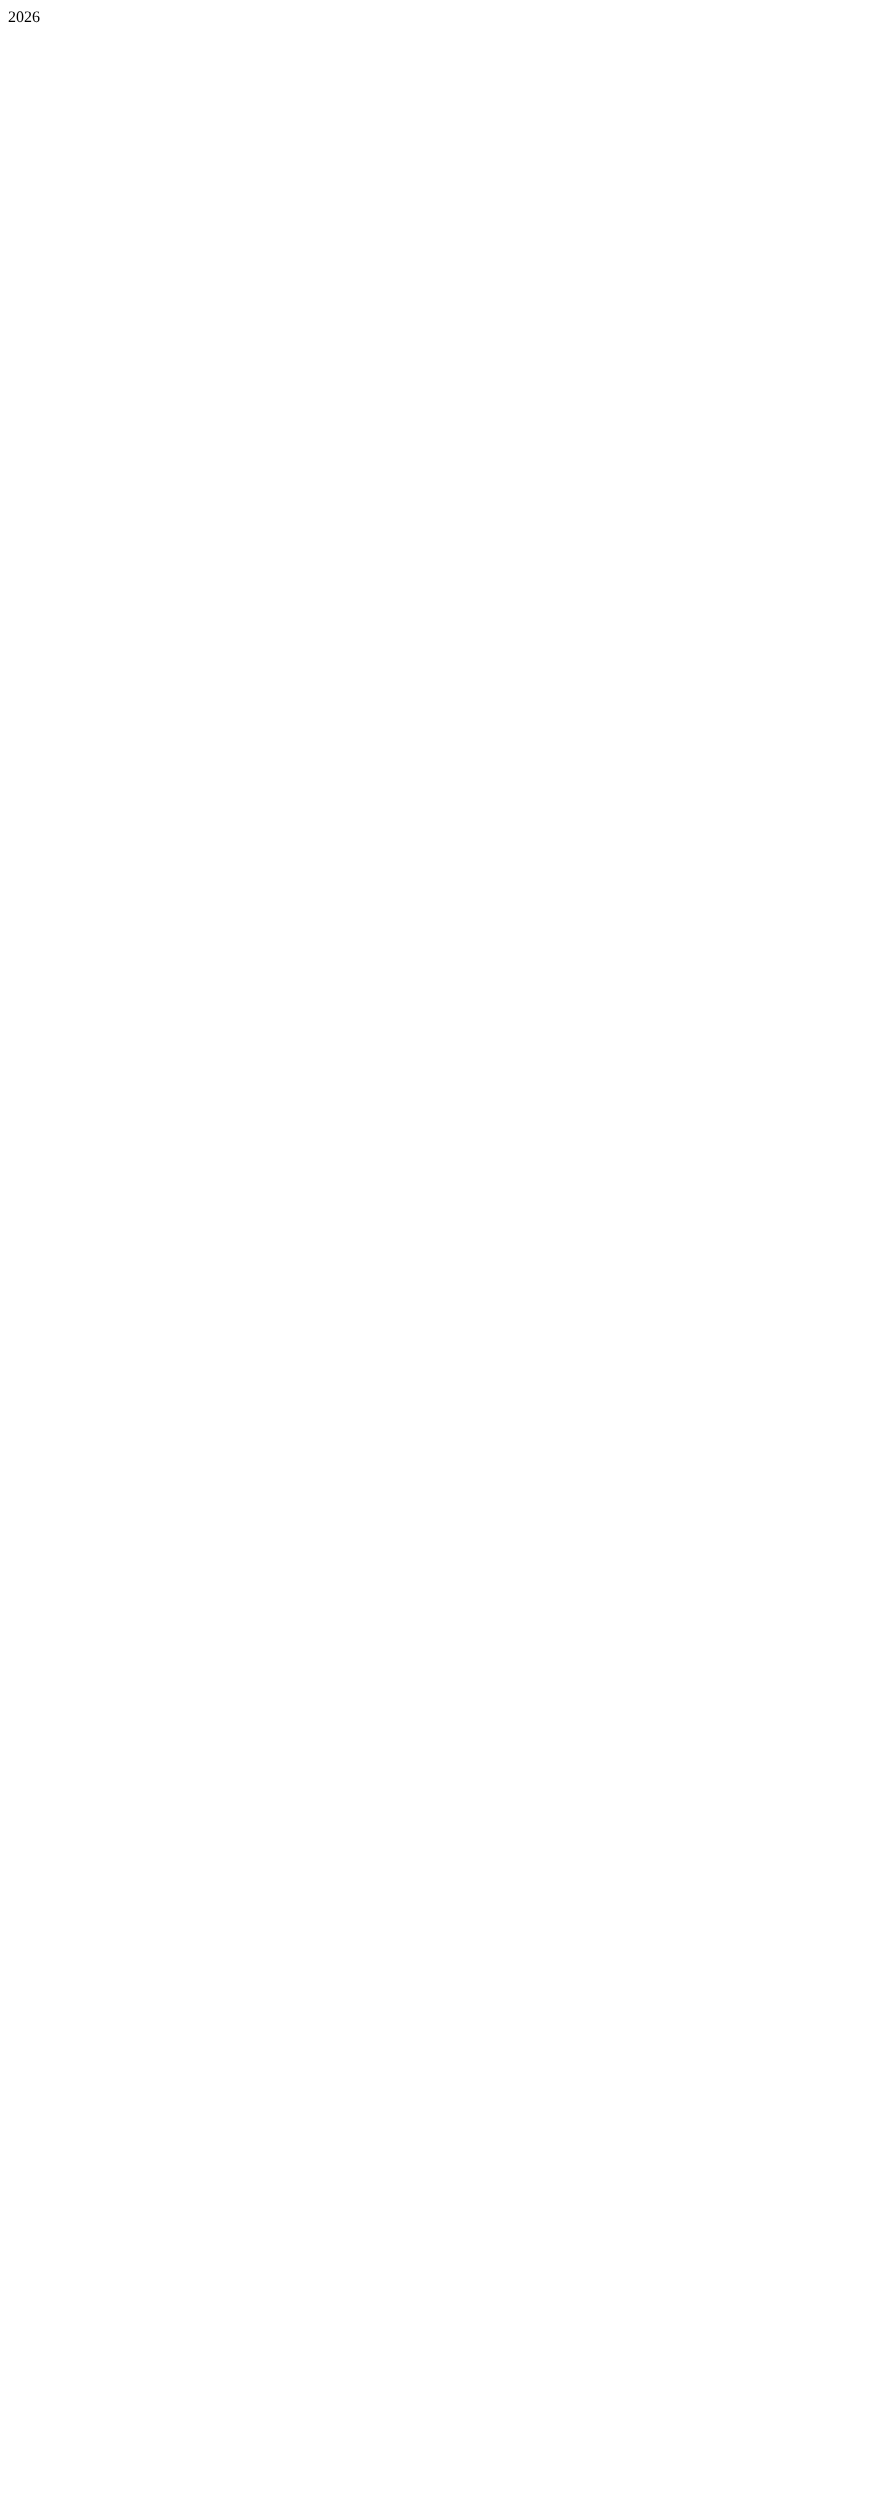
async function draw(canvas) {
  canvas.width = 886
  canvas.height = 2503
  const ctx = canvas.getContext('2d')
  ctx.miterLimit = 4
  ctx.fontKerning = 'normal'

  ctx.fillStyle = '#fff'
  ctx.fillRect(0, 0, 886, 2503)
  ctx.font = '16px Liberation Serif'
  ctx.fillStyle = '#000'
  ctx.fillText('2026', 8, 22)
}

draw(document.querySelector('canvas'))
